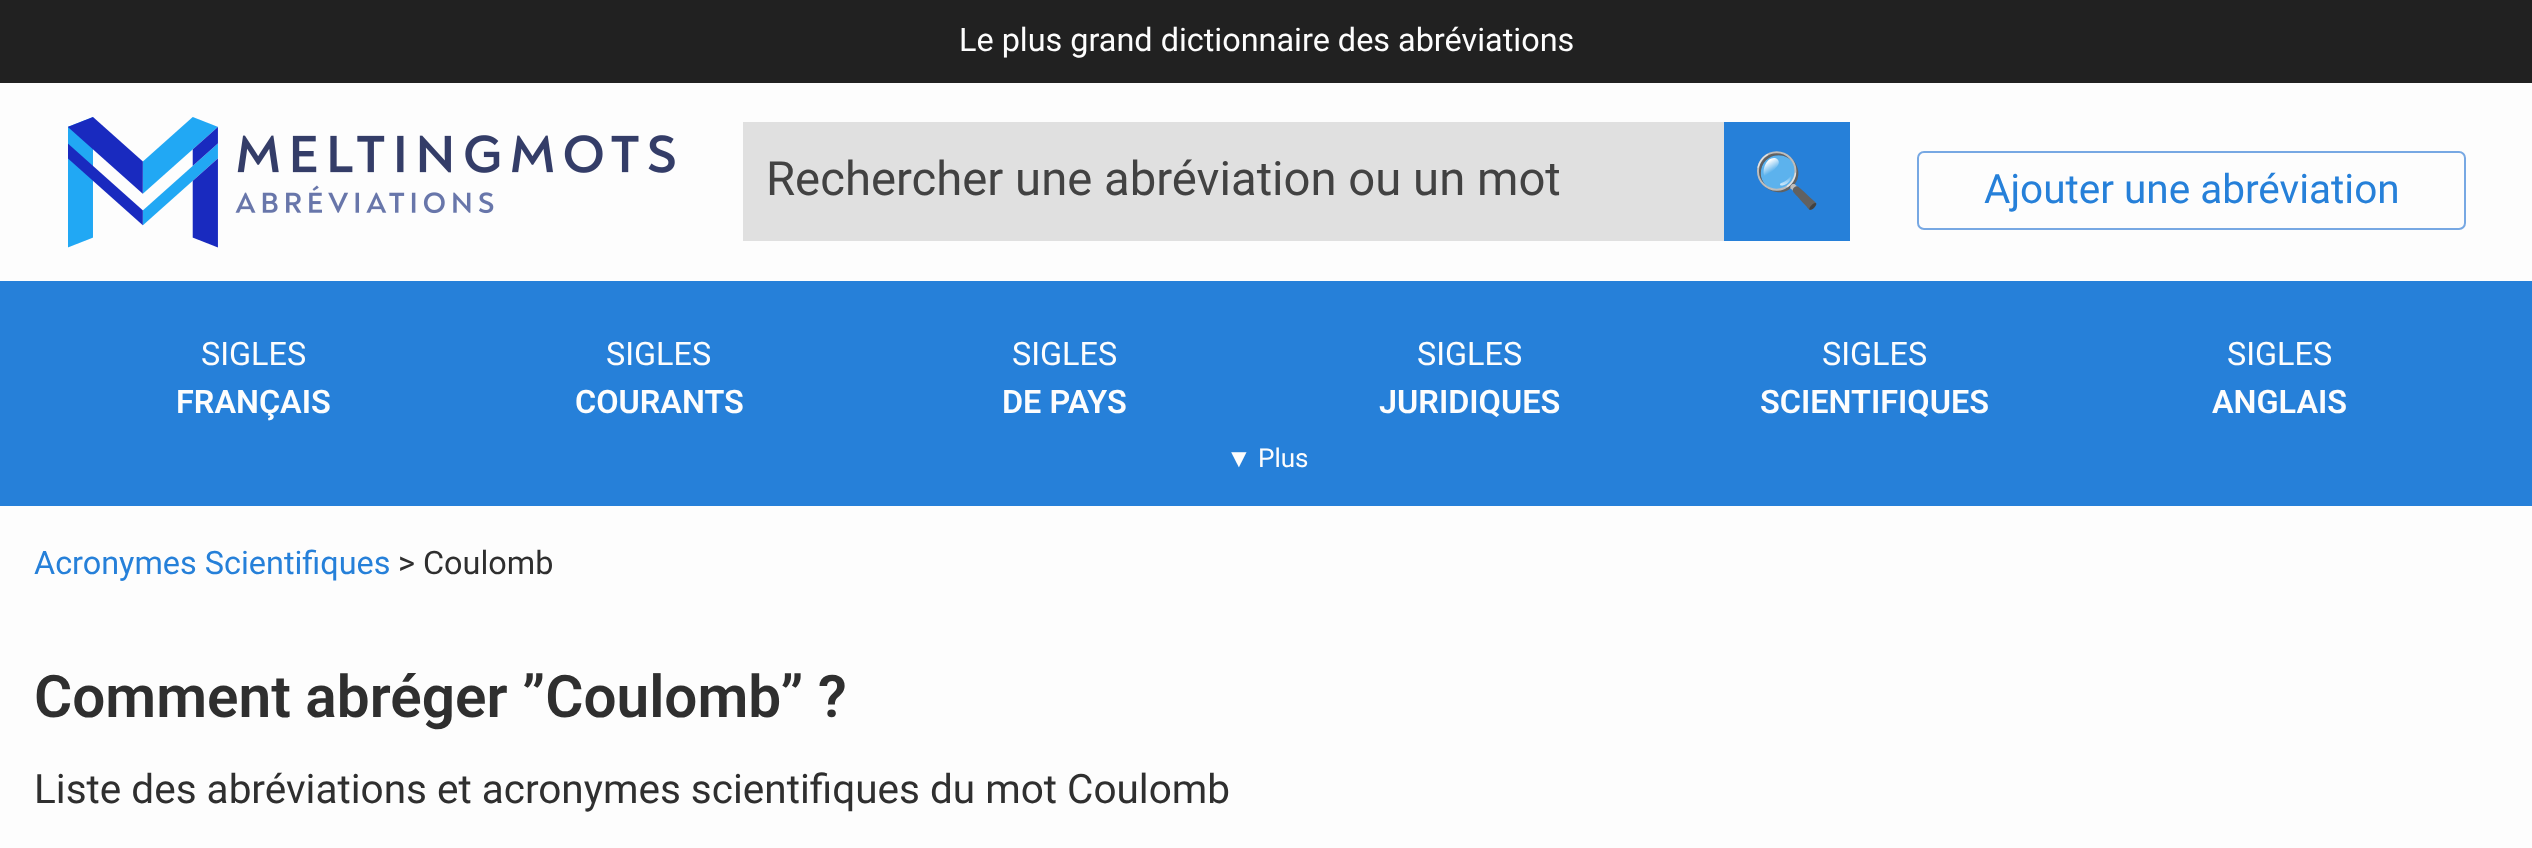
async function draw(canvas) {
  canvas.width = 2532
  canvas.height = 848
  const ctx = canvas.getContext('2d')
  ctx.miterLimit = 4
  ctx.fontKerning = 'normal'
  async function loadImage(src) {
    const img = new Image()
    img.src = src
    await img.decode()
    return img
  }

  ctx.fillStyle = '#fdfdfd'
  ctx.fillRect(0, 0, 2532, 848)
  ctx.fillStyle = '#212121'
  ctx.fillRect(0, 0, 2532, 83)
  ctx.font = '32.4px Roboto'
  ctx.fillStyle = '#fdfdfd'
  ctx.fillText('Le plus grand dictionnaire des abréviations', 959, 51)
  ctx.drawImage(await loadImage('image0.png'), 68, 117, 607, 131)
  ctx.fillStyle = '#e0e0e0'
  ctx.fillRect(743, 122, 981, 119)
  ctx.font = '47.25px Roboto'
  ctx.fillStyle = '#424242'
  ctx.fillText('Rechercher une abréviation ou un mot', 766, 195)
  ctx.fillStyle = '#2680d9'
  ctx.fillRect(1724, 122, 126, 119)
  ctx.font = '54px Noto Color Emoji'
  ctx.fillStyle = '#fdfdfd'
  ctx.fillText('🔍', 1753, 199)
  ctx.beginPath()
  ctx.roundRect(1918, 152, 547, 77, 6)
  ctx.strokeStyle = '#77a8e3'
  ctx.lineWidth = 2
  ctx.stroke()
  ctx.font = '40.5px Roboto'
  ctx.fillStyle = '#2680d9'
  ctx.fillText('Ajouter une abréviation', 1984, 203)
  ctx.fillRect(0, 281, 2532, 225)
  ctx.font = '32.4px Roboto'
  ctx.fillStyle = '#fdfdfd'
  ctx.fillText('SIGLES', 201, 365)
  ctx.font = '600 32.4px Roboto'
  ctx.fillText('FRANÇAIS', 176, 413)
  ctx.font = '32.4px Roboto'
  ctx.fillText('SIGLES', 606, 365)
  ctx.font = '600 32.4px Roboto'
  ctx.fillText('COURANTS', 575, 413)
  ctx.font = '32.4px Roboto'
  ctx.fillText('SIGLES', 1012, 365)
  ctx.font = '600 32.4px Roboto'
  ctx.fillText('DE PAYS', 1002, 413)
  ctx.font = '32.4px Roboto'
  ctx.fillText('SIGLES', 1417, 365)
  ctx.font = '600 32.4px Roboto'
  ctx.fillText('JURIDIQUES', 1379, 413)
  ctx.font = '32.4px Roboto'
  ctx.fillText('SIGLES', 1822, 365)
  ctx.font = '600 32.4px Roboto'
  ctx.fillText('SCIENTIFIQUES', 1760, 413)
  ctx.font = '32.4px Roboto'
  ctx.fillText('SIGLES', 2227, 365)
  ctx.font = '600 32.4px Roboto'
  ctx.fillText('ANGLAIS', 2212, 413)
  ctx.font = '26px Liberation Sans'
  ctx.fillText('▼', 1226, 467)
  ctx.font = '26px Roboto'
  ctx.fillText('Plus', 1258, 467)
  ctx.font = '32.4px Roboto'
  ctx.fillStyle = '#2680d9'
  ctx.fillText('Acronymes Scientifiques', 34, 574)
  ctx.fillStyle = '#2f2f2f'
  ctx.fillText('> Coulomb', 398, 574)
  ctx.font = '600 58.5px Roboto'
  ctx.fillText('Comment abréger ”Coulomb” ?', 34, 717)
  ctx.font = '40.5px Roboto'
  ctx.fillText('Liste des abréviations et acronymes scientifiques du mot Coulomb', 34, 803)
}

draw(document.querySelector('canvas'))
